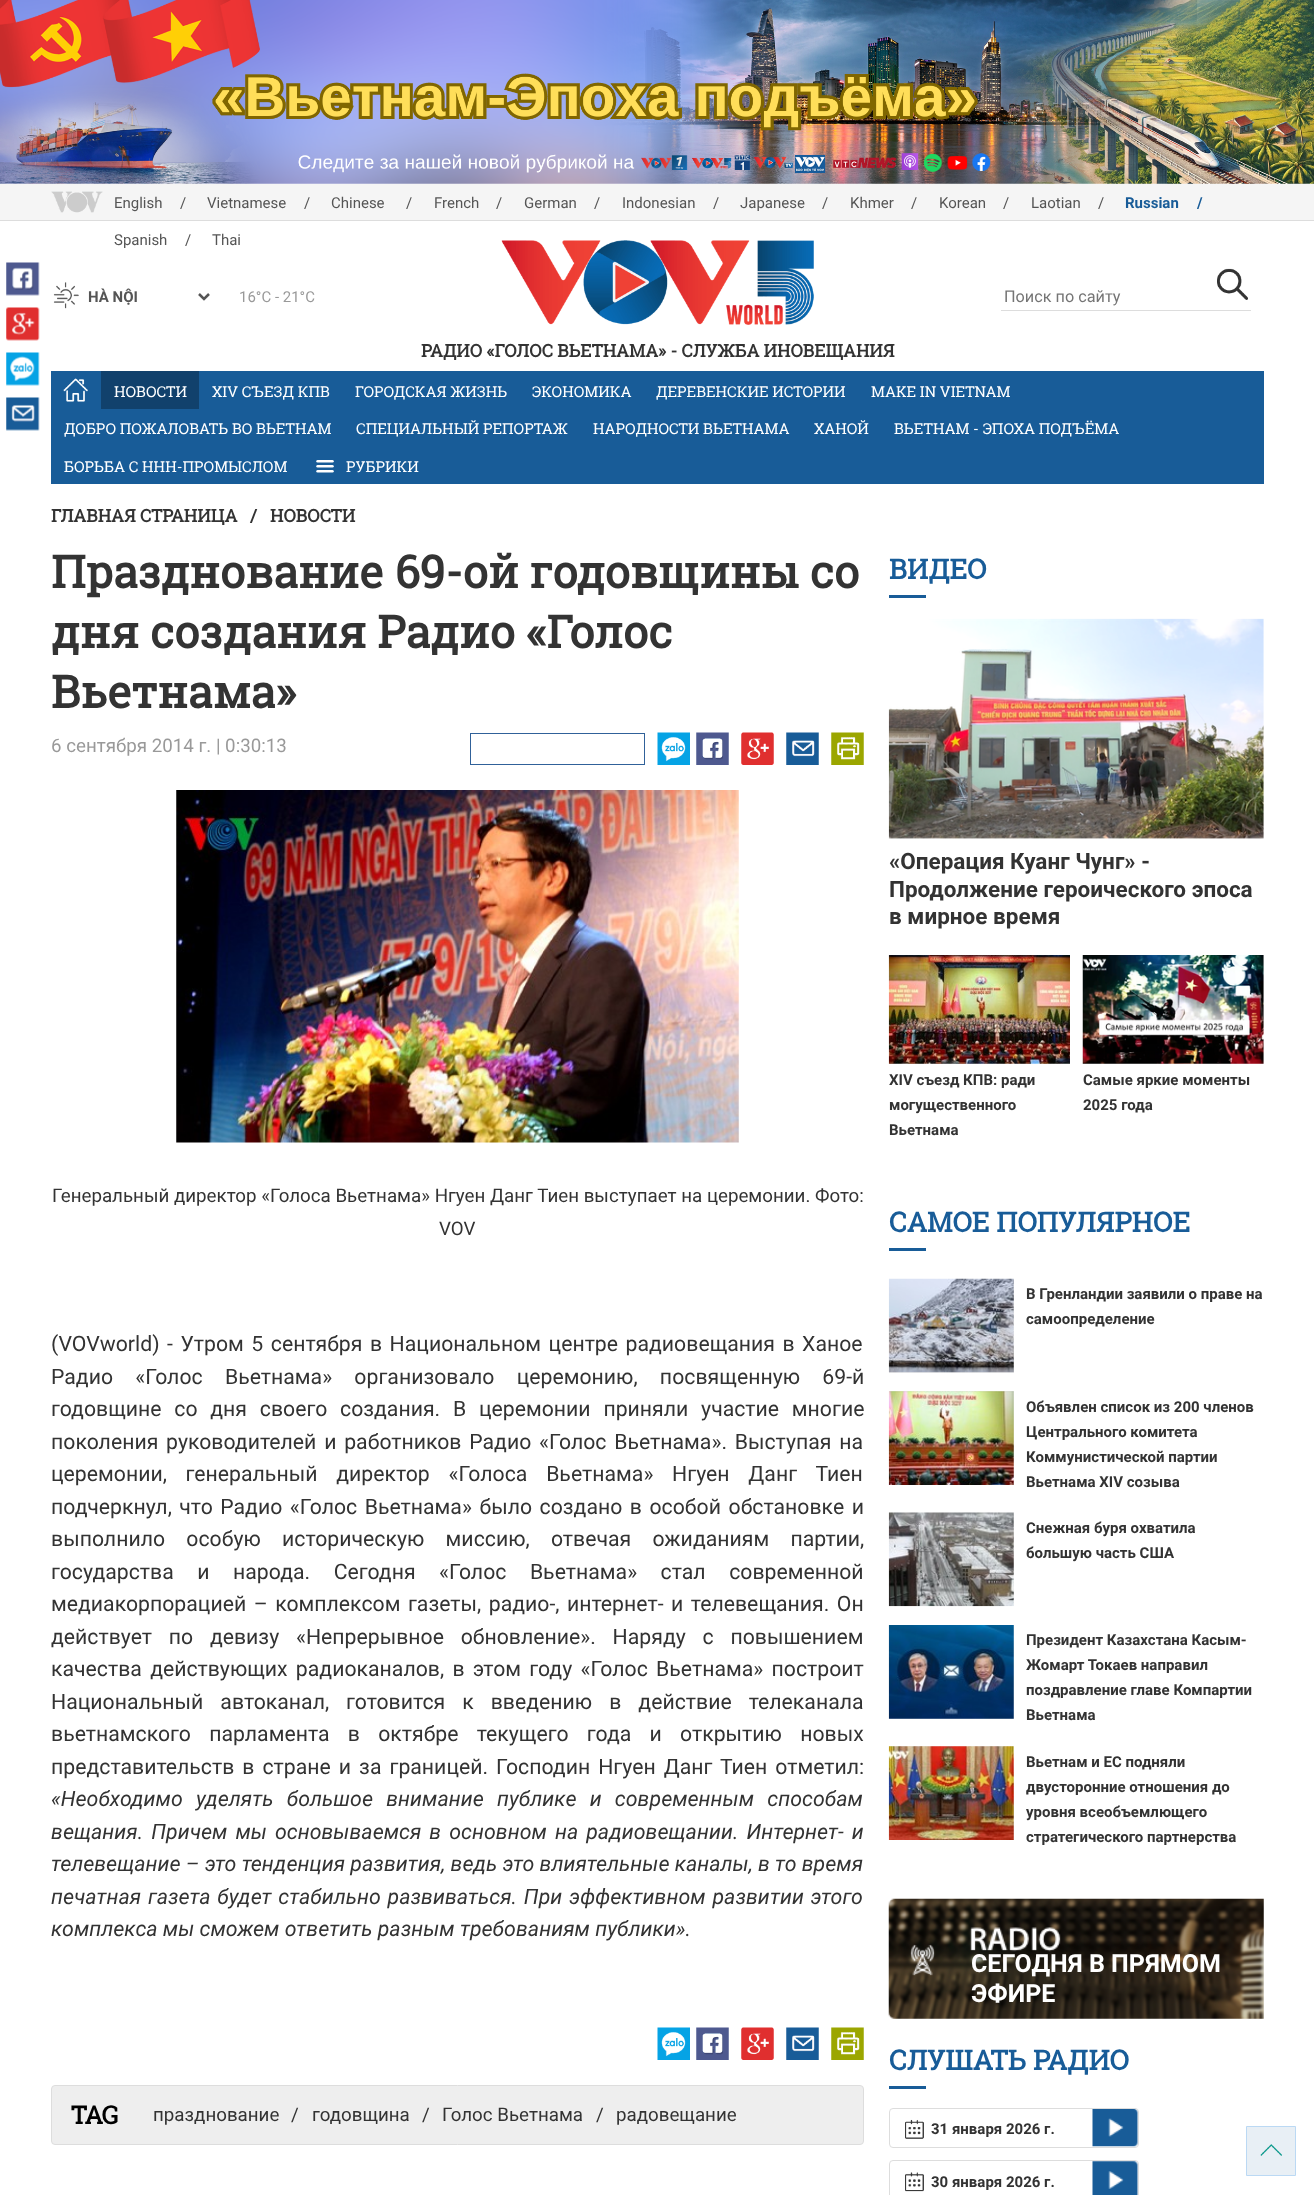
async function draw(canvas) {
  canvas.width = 1314
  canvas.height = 2195
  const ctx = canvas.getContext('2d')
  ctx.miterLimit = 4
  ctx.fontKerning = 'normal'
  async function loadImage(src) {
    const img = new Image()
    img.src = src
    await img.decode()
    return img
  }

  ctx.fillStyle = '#fff'
  ctx.fillRect(0, 0, 1314, 2195)
  ctx.drawImage(await loadImage('image0.png'), 6, 262, 34, 34)
  ctx.drawImage(await loadImage('image1.png'), 6, 307, 34, 34)
  ctx.drawImage(await loadImage('image2.png'), 6, 352, 34, 34)
  ctx.drawImage(await loadImage('image3.png'), 6, 397, 34, 34)
  ctx.drawImage(await loadImage('image4.png'), 0, 0, 1314, 184)
  ctx.fillStyle = '#f5f5f5'
  ctx.fillRect(0, 184, 1314, 36)
  ctx.fillStyle = '#ddd'
  ctx.fillRect(0, 220, 1314, 1)
  ctx.drawImage(await loadImage('image5.png'), 51, 191, 52, 22)
  ctx.font = '15px Roboto'
  ctx.fillStyle = '#555'
  ctx.fillText('English', 114, 208)
  ctx.fillText('/', 180, 208)
  ctx.fillText('Vietnamese', 207, 208)
  ctx.fillText('/', 304, 208)
  ctx.fillText('Chinese', 331, 208)
  ctx.fillText('/', 406, 208)
  ctx.fillText('French', 434, 208)
  ctx.fillText('/', 496, 208)
  ctx.fillText('German', 524, 208)
  ctx.fillText('/', 594, 208)
  ctx.fillText('Indonesian', 622, 208)
  ctx.fillText('/', 713, 208)
  ctx.fillText('Japanese', 740, 208)
  ctx.fillText('/', 822, 208)
  ctx.fillText('Khmer', 850, 208)
  ctx.fillText('/', 911, 208)
  ctx.fillText('Korean', 939, 208)
  ctx.fillText('/', 1003, 208)
  ctx.fillText('Laotian', 1031, 208)
  ctx.fillText('/', 1098, 208)
  ctx.font = 'bold 15px Roboto'
  ctx.fillStyle = '#185c98'
  ctx.fillText('Russian', 1125, 208)
  ctx.fillText('/', 1197, 208)
  ctx.font = '15px Roboto'
  ctx.fillStyle = '#555'
  ctx.fillText('Spanish', 114, 245)
  ctx.fillText('/', 185, 245)
  ctx.fillText('Thai', 212, 245)
  ctx.drawImage(await loadImage('image6.png'), 53, 282, 26, 27)
  ctx.beginPath()
  ctx.moveTo(199, 294)
  ctx.lineTo(204, 299)
  ctx.lineTo(209, 294)
  ctx.strokeStyle = '#555'
  ctx.lineWidth = 2.5
  ctx.stroke()
  ctx.font = 'bold 15px Roboto'
  ctx.fillText('HÀ NỘI', 88, 302)
  ctx.font = '15px Roboto'
  ctx.fillStyle = '#999'
  ctx.fillText('16°C - 21°C', 239, 302)
  ctx.fillStyle = '#ddd'
  ctx.fillRect(1001, 310, 250, 1)
  ctx.font = '16.25px Roboto'
  ctx.fillStyle = '#757575'
  ctx.fillText('Поиск по сайту', 1004, 302)
  ctx.drawImage(await loadImage('image7.png'), 1217, 268, 31, 32)
  ctx.drawImage(await loadImage('image8.png'), 501, 240, 313, 85)
  ctx.font = 'bold 17.5px Roboto Slab'
  ctx.fillStyle = '#333'
  ctx.fillText('РАДИО «ГОЛОС ВЬЕТНАМА» - СЛУЖБА ИНОВЕЩАНИЯ', 421, 357)
  ctx.fillStyle = '#185c98'
  ctx.fillRect(51, 371, 1213, 113)
  ctx.drawImage(await loadImage('image9.png'), 63, 378, 25, 24)
  ctx.fillStyle = '#11416c'
  ctx.fillRect(101, 371, 98, 38)
  ctx.font = '15px Roboto Slab'
  ctx.fillStyle = '#fff'
  ctx.fillText('НОВОСТИ', 114, 397)
  ctx.fillText('XIV CЪЕЗД КПВ', 212, 397)
  ctx.fillText('ГОРОДСКАЯ ЖИЗНЬ', 355, 397)
  ctx.fillText('ЭКОНОМИКА', 532, 397)
  ctx.fillText('ДЕРЕВЕНСКИЕ ИСТОРИИ', 656, 397)
  ctx.fillText('MAKE IN VIETNAM', 871, 397)
  ctx.fillText('ДОБРО ПОЖАЛОВАТЬ ВО ВЬЕТНАМ', 64, 434)
  ctx.fillText('СПЕЦИАЛЬНЫЙ РЕПОРТАЖ', 356, 434)
  ctx.fillText('НАРОДНОСТИ ВЬЕТНАМА', 593, 434)
  ctx.fillText('ХАНОЙ', 814, 434)
  ctx.fillText('ВЬЕТНАМ - ЭПОХА ПОДЪЁМА', 894, 434)
  ctx.fillText('БОРЬБА С ННН-ПРОМЫСЛОМ', 64, 472)
  ctx.drawImage(await loadImage('image10.png'), 316, 460, 18, 13)
  ctx.fillText('РУБРИКИ', 346, 472)
  ctx.font = 'bold 17.5px Roboto Slab'
  ctx.fillStyle = '#333'
  ctx.fillText('ГЛАВНАЯ СТРАНИЦА', 51, 522)
  ctx.fillText('/', 250, 522)
  ctx.fillText('НОВОСТИ', 270, 522)
  ctx.font = 'bold 45px Roboto Slab'
  ctx.fillText('Празднование 69-ой годовщины со', 51, 588)
  ctx.fillText('дня создания Радио «Голос', 51, 648)
  ctx.fillText('Вьетнама»', 51, 708)
  ctx.font = '18.75px Roboto'
  ctx.fillStyle = '#999'
  ctx.fillText('6 сентября 2014 г. | 0:30:13', 51, 752)
  ctx.strokeStyle = '#306199'
  ctx.lineWidth = 1
  ctx.strokeRect(470.5, 733.5, 174, 31)
  ctx.drawImage(await loadImage('image11.png'), 657, 732, 33, 33)
  ctx.drawImage(await loadImage('image12.png'), 696, 732, 33, 33)
  ctx.drawImage(await loadImage('image13.png'), 741, 732, 33, 33)
  ctx.drawImage(await loadImage('image14.png'), 786, 732, 33, 33)
  ctx.drawImage(await loadImage('image15.png'), 831, 732, 33, 33)
  ctx.drawImage(await loadImage('image16.png'), 176, 790, 563, 353)
  ctx.fillStyle = '#333'
  ctx.fillText('Генеральный директор «Голоса Вьетнама» Нгуен Данг Тиен выступает на церемонии. Фото:', 52, 1202)
  ctx.fillText('VOV', 439, 1235)
  ctx.wordSpacing = '2.25px'
  ctx.font = '21.25px Roboto'
  ctx.fillText('(VOVworld) - Утром 5 сентября в Национальном центре радиовещания в Ханое', 51, 1351)
  ctx.wordSpacing = '17px'
  ctx.fillText('Радио «Голос Вьетнама» организовало церемонию, посвященную 69-й', 51, 1384)
  ctx.wordSpacing = '7.5px'
  ctx.fillText('годовщине со дня своего создания. В церемонии приняли участие многие', 51, 1416)
  ctx.wordSpacing = '2.5px'
  ctx.fillText('поколения руководителей и работников Радио «Голос Вьетнама». Выступая на', 51, 1449)
  ctx.wordSpacing = '13.5px'
  ctx.fillText('церемонии, генеральный директор «Голоса Вьетнама» Нгуен Данг Тиен', 51, 1481)
  ctx.wordSpacing = '2.25px'
  ctx.fillText('подчеркнул, что Радио «Голос Вьетнама» было создано в особой обстановке и', 51, 1514)
  ctx.wordSpacing = '16px'
  ctx.fillText('выполнило особую историческую миссию, отвечая ожиданиям партии,', 51, 1546)
  ctx.wordSpacing = '18.25px'
  ctx.fillText('государства и народа. Сегодня «Голос Вьетнама» стал современной', 51, 1579)
  ctx.wordSpacing = '2.25px'
  ctx.fillText('медиакорпорацией – комплексом газеты, радио-, интернет- и телевещания. Он', 51, 1611)
  ctx.wordSpacing = '11.5px'
  ctx.fillText('действует по девизу «Непрерывное обновление». Наряду с повышением', 51, 1644)
  ctx.wordSpacing = '3px'
  ctx.fillText('качества действующих радиоканалов, в этом году «Голос Вьетнама» построит', 51, 1676)
  ctx.wordSpacing = '11.75px'
  ctx.fillText('Национальный автоканал, готовится к введению в действие телеканала', 51, 1709)
  ctx.wordSpacing = '13px'
  ctx.fillText('вьетнамского парламента в октябре текущего года и открытию новых', 51, 1741)
  ctx.wordSpacing = '2.75px'
  ctx.fillText('представительств в стране и за границей. Господин Нгуен Данг Тиен отметил:', 51, 1774)
  ctx.wordSpacing = '8px'
  ctx.font = 'italic 21.25px Roboto'
  ctx.fillText('«Необходимо уделять большое внимание публике и современным способам', 51, 1806)
  ctx.wordSpacing = '2.75px'
  ctx.fillText('вещания. Причем мы основываемся в основном на радиовещании. Интернет- и', 51, 1839)
  ctx.wordSpacing = '0px'
  ctx.fillText('телевещание – это тенденция развития, ведь это влиятельные каналы, в то время', 51, 1871)
  ctx.wordSpacing = '1.5px'
  ctx.fillText('печатная газета будет стабильно развиваться. При эффективном развитии этого', 51, 1904)
  ctx.wordSpacing = '0px'
  ctx.fillText('комплекса мы сможем ответить разным требованиям публики».', 51, 1936)
  ctx.drawImage(await loadImage('image11.png'), 657, 2027, 33, 33)
  ctx.drawImage(await loadImage('image12.png'), 696, 2027, 33, 33)
  ctx.drawImage(await loadImage('image13.png'), 741, 2027, 33, 33)
  ctx.drawImage(await loadImage('image14.png'), 786, 2027, 33, 33)
  ctx.drawImage(await loadImage('image15.png'), 831, 2027, 33, 33)
  ctx.fillStyle = '#eee'
  ctx.beginPath()
  ctx.roundRect(51.5, 2085.5, 812, 59, 3.5)
  ctx.fill()
  ctx.strokeStyle = '#ddd'
  ctx.stroke()
  ctx.font = 'bold 25px Roboto Slab'
  ctx.fillStyle = '#000'
  ctx.fillText('TAG', 71, 2124)
  ctx.font = '18.75px Roboto'
  ctx.fillStyle = '#333'
  ctx.fillText('празднование', 153, 2121)
  ctx.fillText('/', 291, 2121)
  ctx.fillText('годовщина', 312, 2121)
  ctx.fillText('/', 422, 2121)
  ctx.fillText('Голос Вьетнама', 442, 2121)
  ctx.fillText('/', 596, 2121)
  ctx.fillText('радовещание', 616, 2121)
  ctx.font = 'bold 27.5px Roboto Slab'
  ctx.fillStyle = '#185c98'
  ctx.fillText('ВИДЕО', 889, 579)
  ctx.fillRect(889, 595, 37, 3)
  ctx.drawImage(await loadImage('image17.png'), 888, 618, 376, 221)
  ctx.font = 'bold 22.5px Roboto'
  ctx.fillStyle = '#333'
  ctx.fillText('«Операция Куанг Чунг» -', 889, 869)
  ctx.fillText('Продолжение героического эпоса', 889, 897)
  ctx.fillText('в мирное время', 889, 924)
  ctx.drawImage(await loadImage('image18.png'), 888, 955, 182, 109)
  ctx.font = 'bold 15px Roboto'
  ctx.fillText('XIV съезд КПВ: ради', 889, 1085)
  ctx.fillText('могущественного', 889, 1110)
  ctx.fillText('Вьетнама', 889, 1135)
  ctx.drawImage(await loadImage('image19.png'), 1082, 955, 182, 109)
  ctx.fillText('Самые яркие моменты', 1083, 1085)
  ctx.fillText('2025 года', 1083, 1110)
  ctx.font = 'bold 27.5px Roboto Slab'
  ctx.fillStyle = '#185c98'
  ctx.fillText('САМОЕ ПОПУЛЯРНОЕ', 889, 1232)
  ctx.fillRect(889, 1248, 37, 3)
  ctx.fillStyle = '#eee'
  ctx.fillRect(889, 1279, 125, 94)
  ctx.drawImage(await loadImage('image20.png'), 888, 1278, 126, 95)
  ctx.font = 'bold 15px Roboto'
  ctx.fillStyle = '#333'
  ctx.fillText('В Гренландии заявили о праве на', 1026, 1299)
  ctx.fillText('самоопределение', 1026, 1324)
  ctx.fillStyle = '#eee'
  ctx.fillRect(889, 1391, 125, 94)
  ctx.drawImage(await loadImage('image21.png'), 888, 1391, 126, 94)
  ctx.fillStyle = '#333'
  ctx.fillText('Объявлен список из 200 членов', 1026, 1412)
  ctx.fillText('Центрального комитета', 1026, 1437)
  ctx.fillText('Коммунистической партии', 1026, 1462)
  ctx.fillText('Вьетнама XIV созыва', 1026, 1487)
  ctx.drawImage(await loadImage('image22.png'), 888, 1512, 126, 95)
  ctx.fillText('Снежная буря охватила', 1026, 1533)
  ctx.fillText('большую часть США', 1026, 1558)
  ctx.fillStyle = '#eee'
  ctx.fillRect(889, 1625, 125, 94)
  ctx.drawImage(await loadImage('image23.png'), 888, 1625, 126, 94)
  ctx.fillStyle = '#333'
  ctx.fillText('Президент Казахстана Касым-', 1026, 1645)
  ctx.fillText('Жомарт Токаев направил', 1026, 1670)
  ctx.fillText('поздравление главе Компартии', 1026, 1695)
  ctx.fillText('Вьетнама', 1026, 1720)
  ctx.fillStyle = '#eee'
  ctx.fillRect(889, 1746, 125, 94)
  ctx.drawImage(await loadImage('image24.png'), 888, 1746, 126, 94)
  ctx.fillStyle = '#333'
  ctx.fillText('Вьетнам и ЕС подняли', 1026, 1767)
  ctx.fillText('двусторонние отношения до', 1026, 1792)
  ctx.fillText('уровня всеобъемлющего', 1026, 1817)
  ctx.fillText('стратегического партнерства', 1026, 1842)
  ctx.drawImage(await loadImage('image25.png'), 888, 1898, 376, 121)
  ctx.font = 'bold 25px Roboto'
  ctx.fillStyle = '#fff'
  ctx.fillText('CЕГОДНЯ В ПРЯМОМ', 971, 1972)
  ctx.fillText('ЭФИРЕ', 971, 2002)
  ctx.font = 'bold 27.5px Roboto Slab'
  ctx.fillStyle = '#185c98'
  ctx.fillText('СЛУШАТЬ РАДИО', 889, 2070)
  ctx.fillRect(889, 2086, 37, 3)
  ctx.drawImage(await loadImage('image26.png'), 1092, 2108, 46, 39)
  ctx.beginPath()
  ctx.roundRect(889.5, 2108.5, 249, 39, 3.5)
  ctx.stroke()
  ctx.drawImage(await loadImage('image27.png'), 905, 2119, 19, 20)
  ctx.font = 'bold 15px Roboto'
  ctx.fillStyle = '#333'
  ctx.fillText('31 января 2026 г.', 931, 2134)
  ctx.drawImage(await loadImage('image28.png'), 1092, 2161, 46, 34)
  ctx.beginPath()
  ctx.roundRect(889.5, 2160.5, 249, 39, 3.5)
  ctx.stroke()
  ctx.drawImage(await loadImage('image29.png'), 905, 2172, 19, 20)
  ctx.fillText('30 января 2026 г.', 931, 2187)
  ctx.fillStyle = '#e8eff5'
  ctx.beginPath()
  ctx.rect(1246.5, 2126.5, 49, 49)
  ctx.fill()
  ctx.strokeStyle = '#bbd9f4'
  ctx.stroke()
  ctx.drawImage(await loadImage('image30.png'), 1260, 2144, 22, 12)
}

draw(document.querySelector('canvas'))
